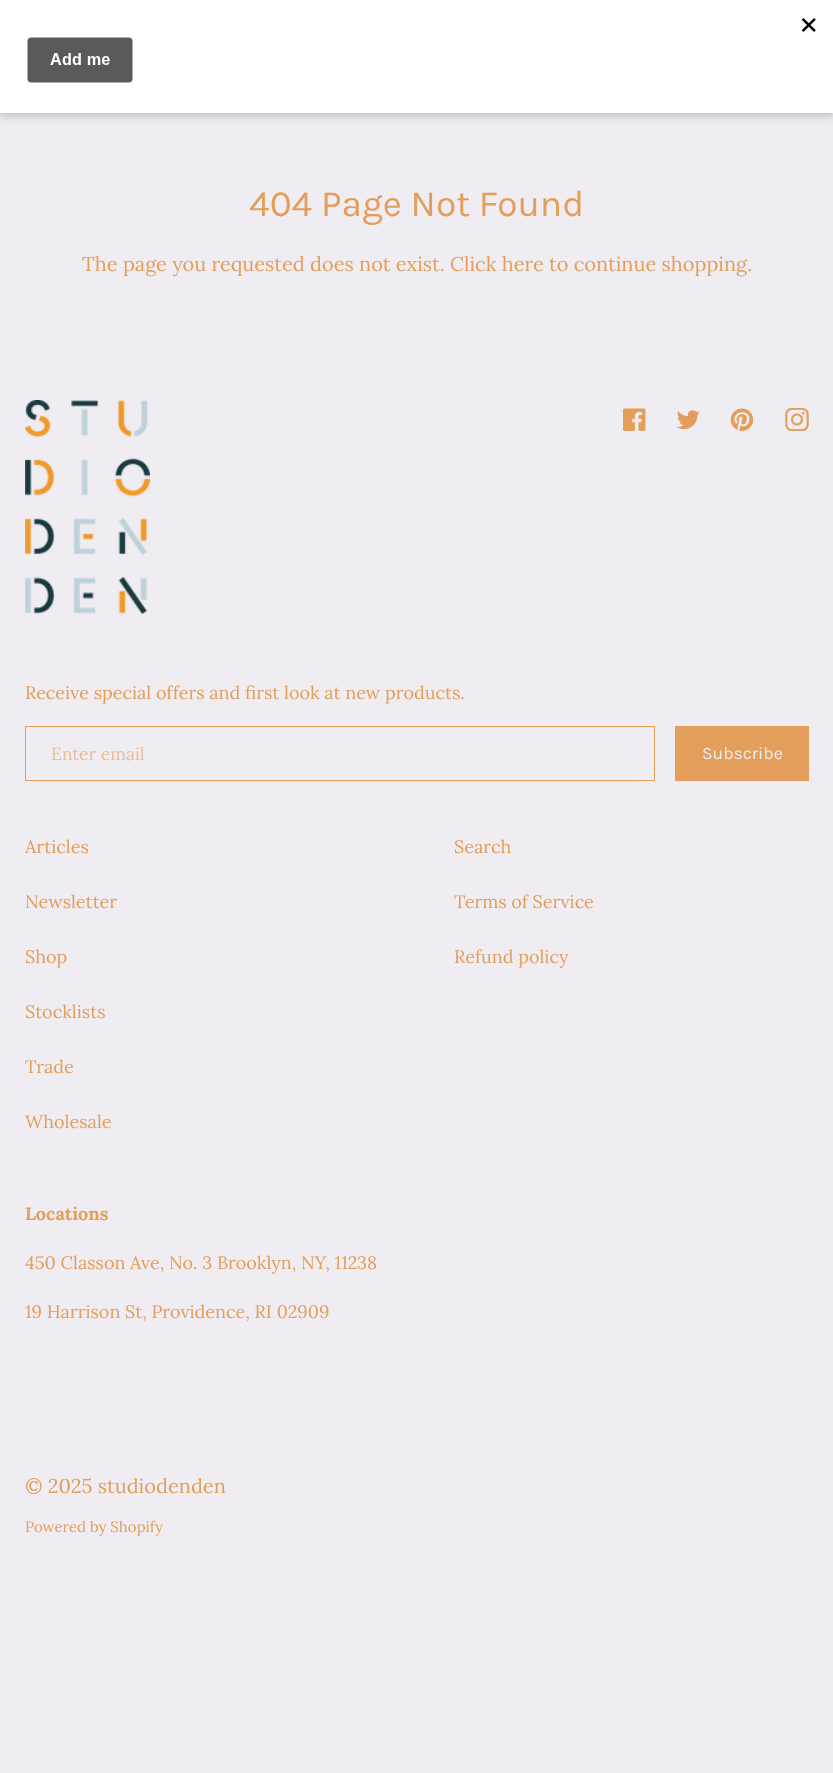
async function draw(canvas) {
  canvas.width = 833
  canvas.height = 1773
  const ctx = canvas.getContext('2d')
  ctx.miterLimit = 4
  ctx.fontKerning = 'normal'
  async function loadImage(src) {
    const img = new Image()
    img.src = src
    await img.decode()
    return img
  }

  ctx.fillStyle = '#efecf2'
  ctx.fillRect(0, 0, 833, 1773)
  ctx.fillStyle = '#00000033'
  ctx.filter = 'blur(4px)'
  ctx.beginPath()
  ctx.rect(0, 4, 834, 112)
  ctx.fill()
  ctx.filter = 'none'
  ctx.fillStyle = '#fff'
  ctx.fillRect(0, 0, 833, 113)
  ctx.drawImage(await loadImage('image0.png'), 27, 18, 789, 65)
  ctx.font = '37px Karla'
  ctx.fillStyle = '#e39e5b'
  ctx.fillText('404 Page Not Found', 249, 216)
  ctx.font = '20px Lora'
  ctx.fillText('The page you requested does not exist. Click here to continue shopping.', 82, 271)
  ctx.drawImage(await loadImage('image1.png'), 25, 400, 125, 214)
  ctx.drawImage(await loadImage('image2.png'), 623, 408, 23, 23)
  ctx.drawImage(await loadImage('image3.png'), 677, 410, 23, 20)
  ctx.drawImage(await loadImage('image4.png'), 730, 408, 24, 23)
  ctx.drawImage(await loadImage('image5.png'), 785, 408, 24, 23)
  ctx.font = '18px Lora'
  ctx.fillText('Receive special offers and first look at new products.', 25, 699)
  ctx.strokeStyle = '#e39e5b'
  ctx.strokeRect(25.5, 726.5, 629, 54)
  ctx.font = '17.5px Lora'
  ctx.fillStyle = '#e8bd97'
  ctx.fillText('Enter email', 51, 760)
  ctx.fillStyle = '#e39e5b'
  ctx.fillRect(675, 726, 134, 55)
  ctx.font = '17.5px Karla'
  ctx.fillStyle = '#efecf2'
  ctx.fillText('Subscribe', 702, 759)
  ctx.font = '18px Lora'
  ctx.fillStyle = '#e39e5b'
  ctx.fillText('Articles', 25, 853)
  ctx.fillText('Newsletter', 25, 908)
  ctx.fillText('Shop', 25, 963)
  ctx.fillText('Stocklists', 25, 1018)
  ctx.fillText('Trade', 25, 1073)
  ctx.fillText('Wholesale', 25, 1128)
  ctx.fillText('Search', 454, 853)
  ctx.fillText('Terms of Service', 454, 908)
  ctx.fillText('Refund policy', 454, 963)
  ctx.font = 'bold 18px Lora'
  ctx.fillText('Locations', 25, 1220)
  ctx.font = '18px Lora'
  ctx.fillText('450 Classon Ave, No. 3 Brooklyn, NY, 11238', 25, 1269)
  ctx.fillText('19 Harrison St, Providence, RI 02909', 25, 1318)
  ctx.font = '20px Lora'
  ctx.fillText('© 2025 studiodenden', 25, 1493)
  ctx.font = '15px Lora'
  ctx.fillText('Powered by Shopify', 25, 1532)
}

draw(document.querySelector('canvas'))
